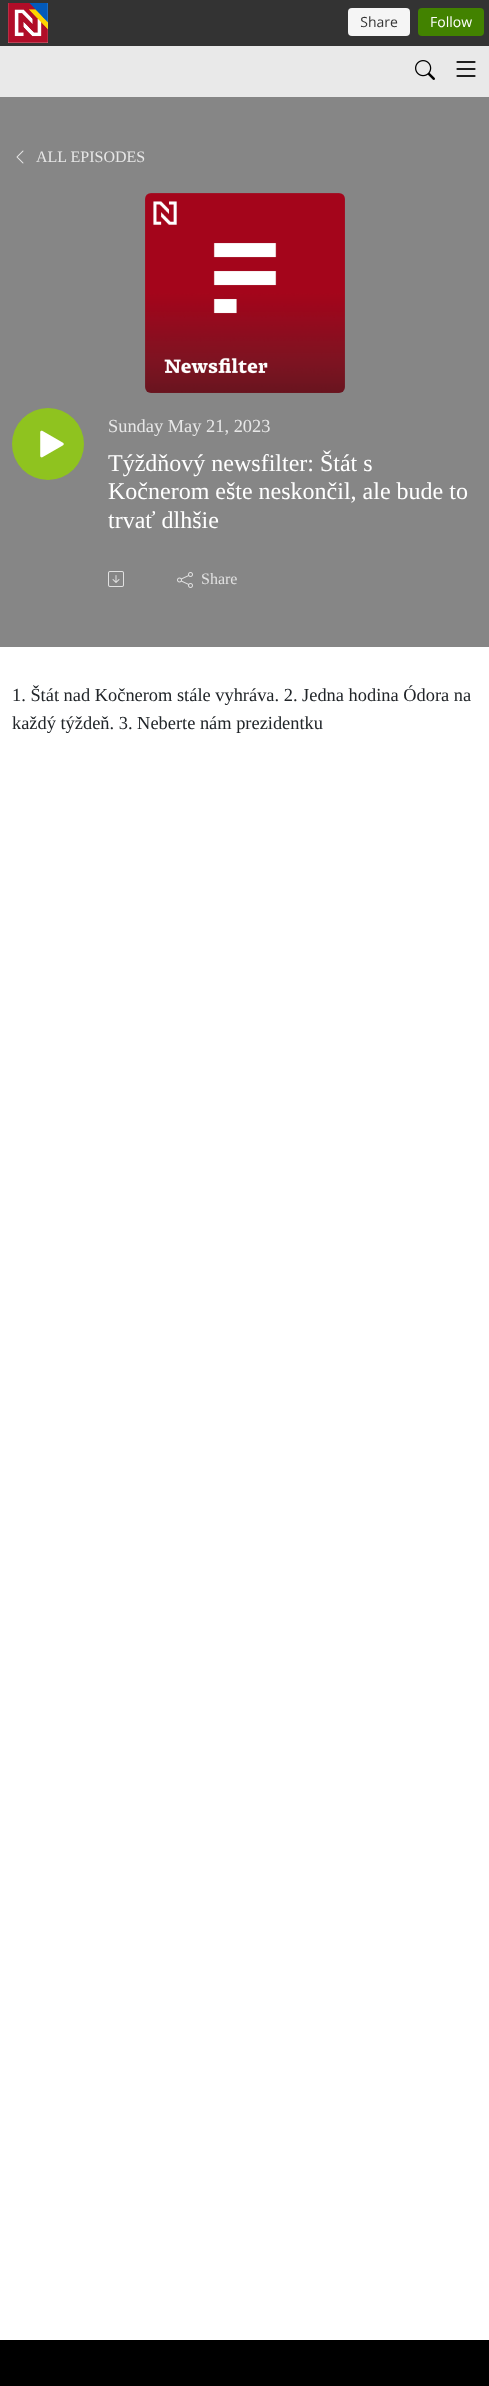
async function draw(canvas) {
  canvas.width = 489
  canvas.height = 2386
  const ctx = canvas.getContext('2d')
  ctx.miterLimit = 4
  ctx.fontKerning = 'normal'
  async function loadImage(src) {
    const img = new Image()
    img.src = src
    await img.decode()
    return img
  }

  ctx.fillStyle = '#fff'
  ctx.fillRect(0, 0, 489, 2386)
  ctx.fillStyle = '#333'
  ctx.fillRect(0, 0, 489, 46)
  ctx.drawImage(await loadImage('image0.png'), 8, 3, 476, 40)
  ctx.fillStyle = '#e9e9e9'
  ctx.fillRect(0, 46, 489, 51)
  ctx.drawImage(await loadImage('image1.png'), 415, 60, 20, 20)
  ctx.drawImage(await loadImage('image2.png'), 456, 61, 20, 16)
  ctx.fillStyle = '#868686'
  ctx.fillRect(0, 97, 489, 550)
  ctx.drawImage(await loadImage('image3.png'), 16, 150, 8, 14)
  ctx.font = '16px Liberation Serif'
  ctx.fillStyle = '#e7e7e7'
  ctx.fillText('ALL EPISODES', 36, 162)
  ctx.drawImage(await loadImage('image4.png'), 145, 193, 200, 200)
  ctx.fillStyle = '#8fc31f'
  ctx.beginPath()
  ctx.arc(48, 444, 36, 0, 2 * Math.PI)
  ctx.fill()
  ctx.drawImage(await loadImage('image5.png'), 40, 430, 24, 28)
  ctx.font = '18.4px Liberation Serif'
  ctx.fillStyle = '#e7e7e7'
  ctx.fillText('Sunday May 21, 2023', 108, 432)
  ctx.font = '24px Liberation Serif'
  ctx.fillStyle = '#fff'
  ctx.fillText('Týždňový newsfilter: Štát s', 108, 471)
  ctx.fillText('Kočnerom ešte neskončil, ale bude to', 108, 499)
  ctx.fillText('trvať dlhšie', 108, 528)
  ctx.drawImage(await loadImage('image6.png'), 108, 571, 16, 16)
  ctx.drawImage(await loadImage('image7.png'), 177, 572, 16, 16)
  ctx.font = '16px Liberation Serif'
  ctx.fillStyle = '#e1e1e1'
  ctx.fillText('Share', 201, 584)
  ctx.font = '18.4px Liberation Serif'
  ctx.fillStyle = '#212529'
  ctx.fillText('1. Štát nad Kočnerom stále vyhráva. 2. Jedna hodina Ódora na', 12, 701)
  ctx.fillText('každý týždeň. 3. Neberte nám prezidentku', 12, 729)
  ctx.fillStyle = '#000'
  ctx.fillRect(0, 2340, 489, 46)
}

draw(document.querySelector('canvas'))
